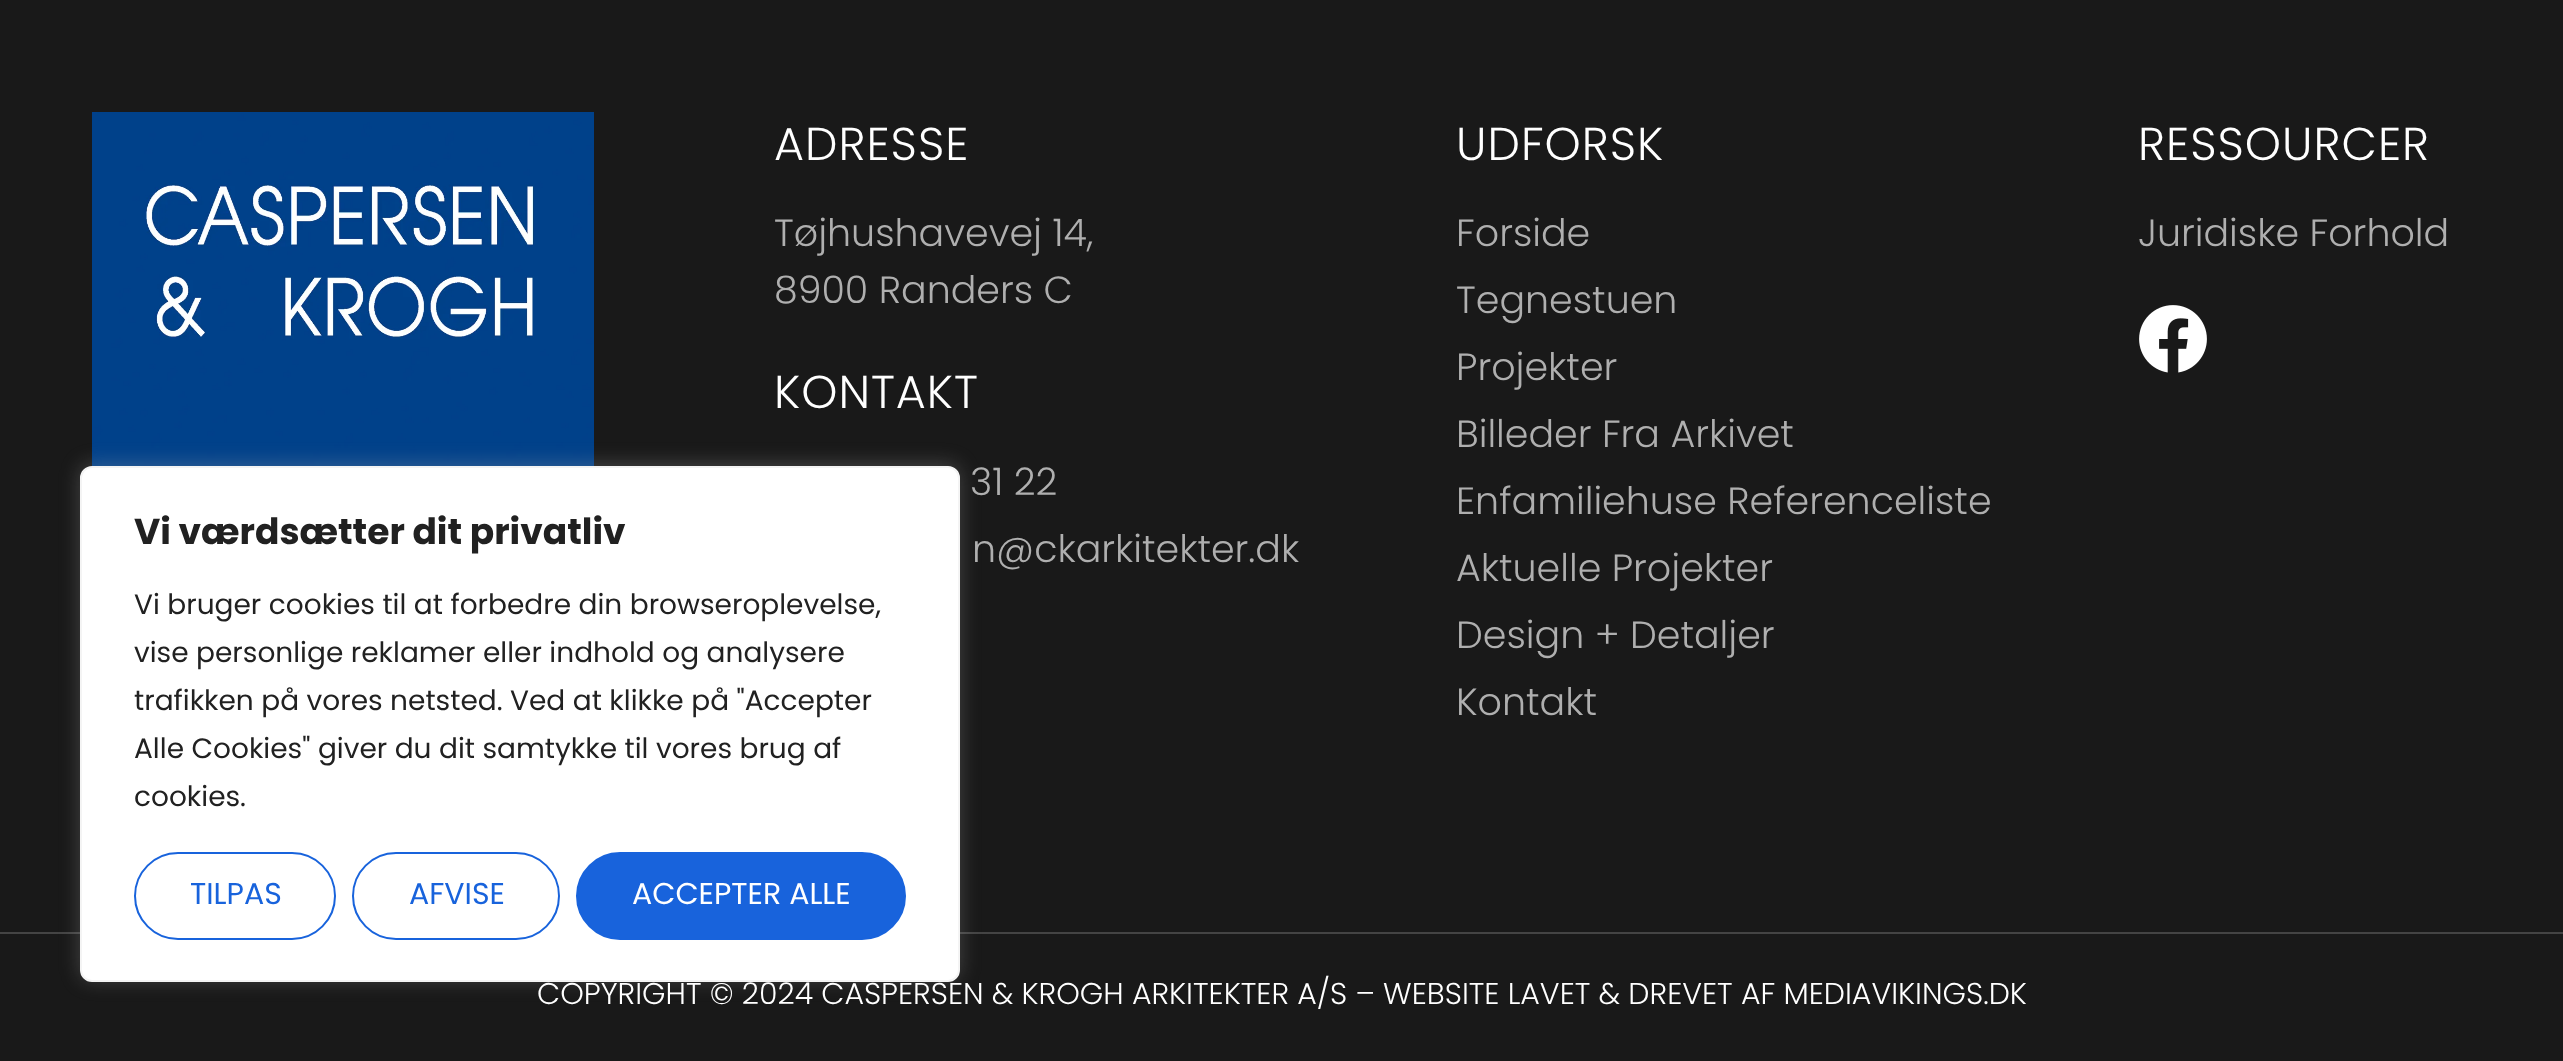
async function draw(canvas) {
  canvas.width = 2563
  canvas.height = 1061
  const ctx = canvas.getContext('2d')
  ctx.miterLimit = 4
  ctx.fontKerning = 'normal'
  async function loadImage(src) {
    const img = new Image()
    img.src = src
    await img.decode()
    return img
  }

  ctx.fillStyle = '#191919'
  ctx.fillRect(0, 0, 2563, 1061)
  ctx.fillStyle = '#444'
  ctx.fillRect(0, 932, 2563, 2)
  ctx.drawImage(await loadImage('image0.png'), 92, 112, 502, 354)
  ctx.fillStyle = '#acabab4d'
  ctx.filter = 'blur(10px)'
  ctx.beginPath()
  ctx.roundRect(80, 464, 880, 516, 12)
  ctx.fill()
  ctx.filter = 'none'
  ctx.fillStyle = '#fff'
  ctx.beginPath()
  ctx.roundRect(81, 467, 878, 514, 11)
  ctx.fill()
  ctx.strokeStyle = '#f4f4f4'
  ctx.lineWidth = 2
  ctx.stroke()
  ctx.font = 'bold 36px Poppins'
  ctx.fillStyle = '#212121'
  ctx.fillText('Vi værdsætter dit privatliv', 134, 544)
  ctx.font = '28px Poppins'
  ctx.fillText('Vi bruger cookies til at forbedre din browseroplevelse,', 134, 614)
  ctx.fillText('vise personlige reklamer eller indhold og analysere', 134, 662)
  ctx.fillText('trafikken på vores netsted. Ved at klikke på "Accepter', 134, 710)
  ctx.fillText('Alle Cookies" giver du dit samtykke til vores brug af', 134, 758)
  ctx.fillText('cookies.', 134, 806)
  ctx.beginPath()
  ctx.roundRect(135, 853, 200, 86, 43)
  ctx.strokeStyle = '#1863dc'
  ctx.stroke()
  ctx.font = '30px Poppins'
  ctx.fillStyle = '#1863dc'
  ctx.fillText('TILPAS', 190, 904)
  ctx.beginPath()
  ctx.roundRect(353, 853, 206, 86, 43)
  ctx.stroke()
  ctx.fillText('AFVISE', 409, 904)
  ctx.beginPath()
  ctx.roundRect(577, 853, 328, 86, 43)
  ctx.fill()
  ctx.stroke()
  ctx.fillStyle = '#fff'
  ctx.fillText('ACCEPTER ALLE', 632, 904)
  ctx.letterSpacing = '1px'
  ctx.font = '300 46px Poppins'
  ctx.fillText('ADRESSE', 774, 160)
  ctx.letterSpacing = '0px'
  ctx.font = '300 38px Poppins'
  ctx.fillStyle = '#afafaf'
  ctx.fillText('Tøjhushavevej 14,', 774, 246)
  ctx.fillText('8900 Randers C', 774, 303)
  ctx.letterSpacing = '1px'
  ctx.font = '300 46px Poppins'
  ctx.fillStyle = '#fff'
  ctx.fillText('KONTAKT', 774, 408)
  ctx.letterSpacing = '0px'
  ctx.font = '300 38px Poppins'
  ctx.fillStyle = '#afafaf'
  ctx.fillText('31 22', 970, 495)
  ctx.fillText('n@ckarkitekter.dk', 972, 562)
  ctx.letterSpacing = '1px'
  ctx.font = '300 46px Poppins'
  ctx.fillStyle = '#fff'
  ctx.fillText('UDFORSK', 1456, 160)
  ctx.letterSpacing = '0px'
  ctx.font = '300 38px Poppins'
  ctx.fillStyle = '#afafaf'
  ctx.fillText('Forside', 1456, 246)
  ctx.fillText('Tegnestuen', 1456, 313)
  ctx.fillText('Projekter', 1456, 380)
  ctx.fillText('Billeder Fra Arkivet', 1456, 447)
  ctx.fillText('Enfamiliehuse Referenceliste', 1456, 514)
  ctx.fillText('Aktuelle Projekter', 1456, 581)
  ctx.fillText('Design + Detaljer', 1456, 648)
  ctx.fillText('Kontakt', 1456, 715)
  ctx.letterSpacing = '1px'
  ctx.font = '300 46px Poppins'
  ctx.fillStyle = '#fff'
  ctx.fillText('RESSOURCER', 2138, 160)
  ctx.letterSpacing = '0px'
  ctx.font = '300 38px Poppins'
  ctx.fillStyle = '#afafaf'
  ctx.fillText('Juridiske Forhold', 2138, 246)
  ctx.drawImage(await loadImage('image1.png'), 2139, 305, 68, 68)
  ctx.font = '300 30px Poppins'
  ctx.fillStyle = '#fff'
  ctx.fillText('COPYRIGHT © 2024 CASPERSEN & KROGH ARKITEKTER A/S – WEBSITE LAVET & DREVET AF MEDIAVIKINGS.DK', 537, 1004)
}

draw(document.querySelector('canvas'))
